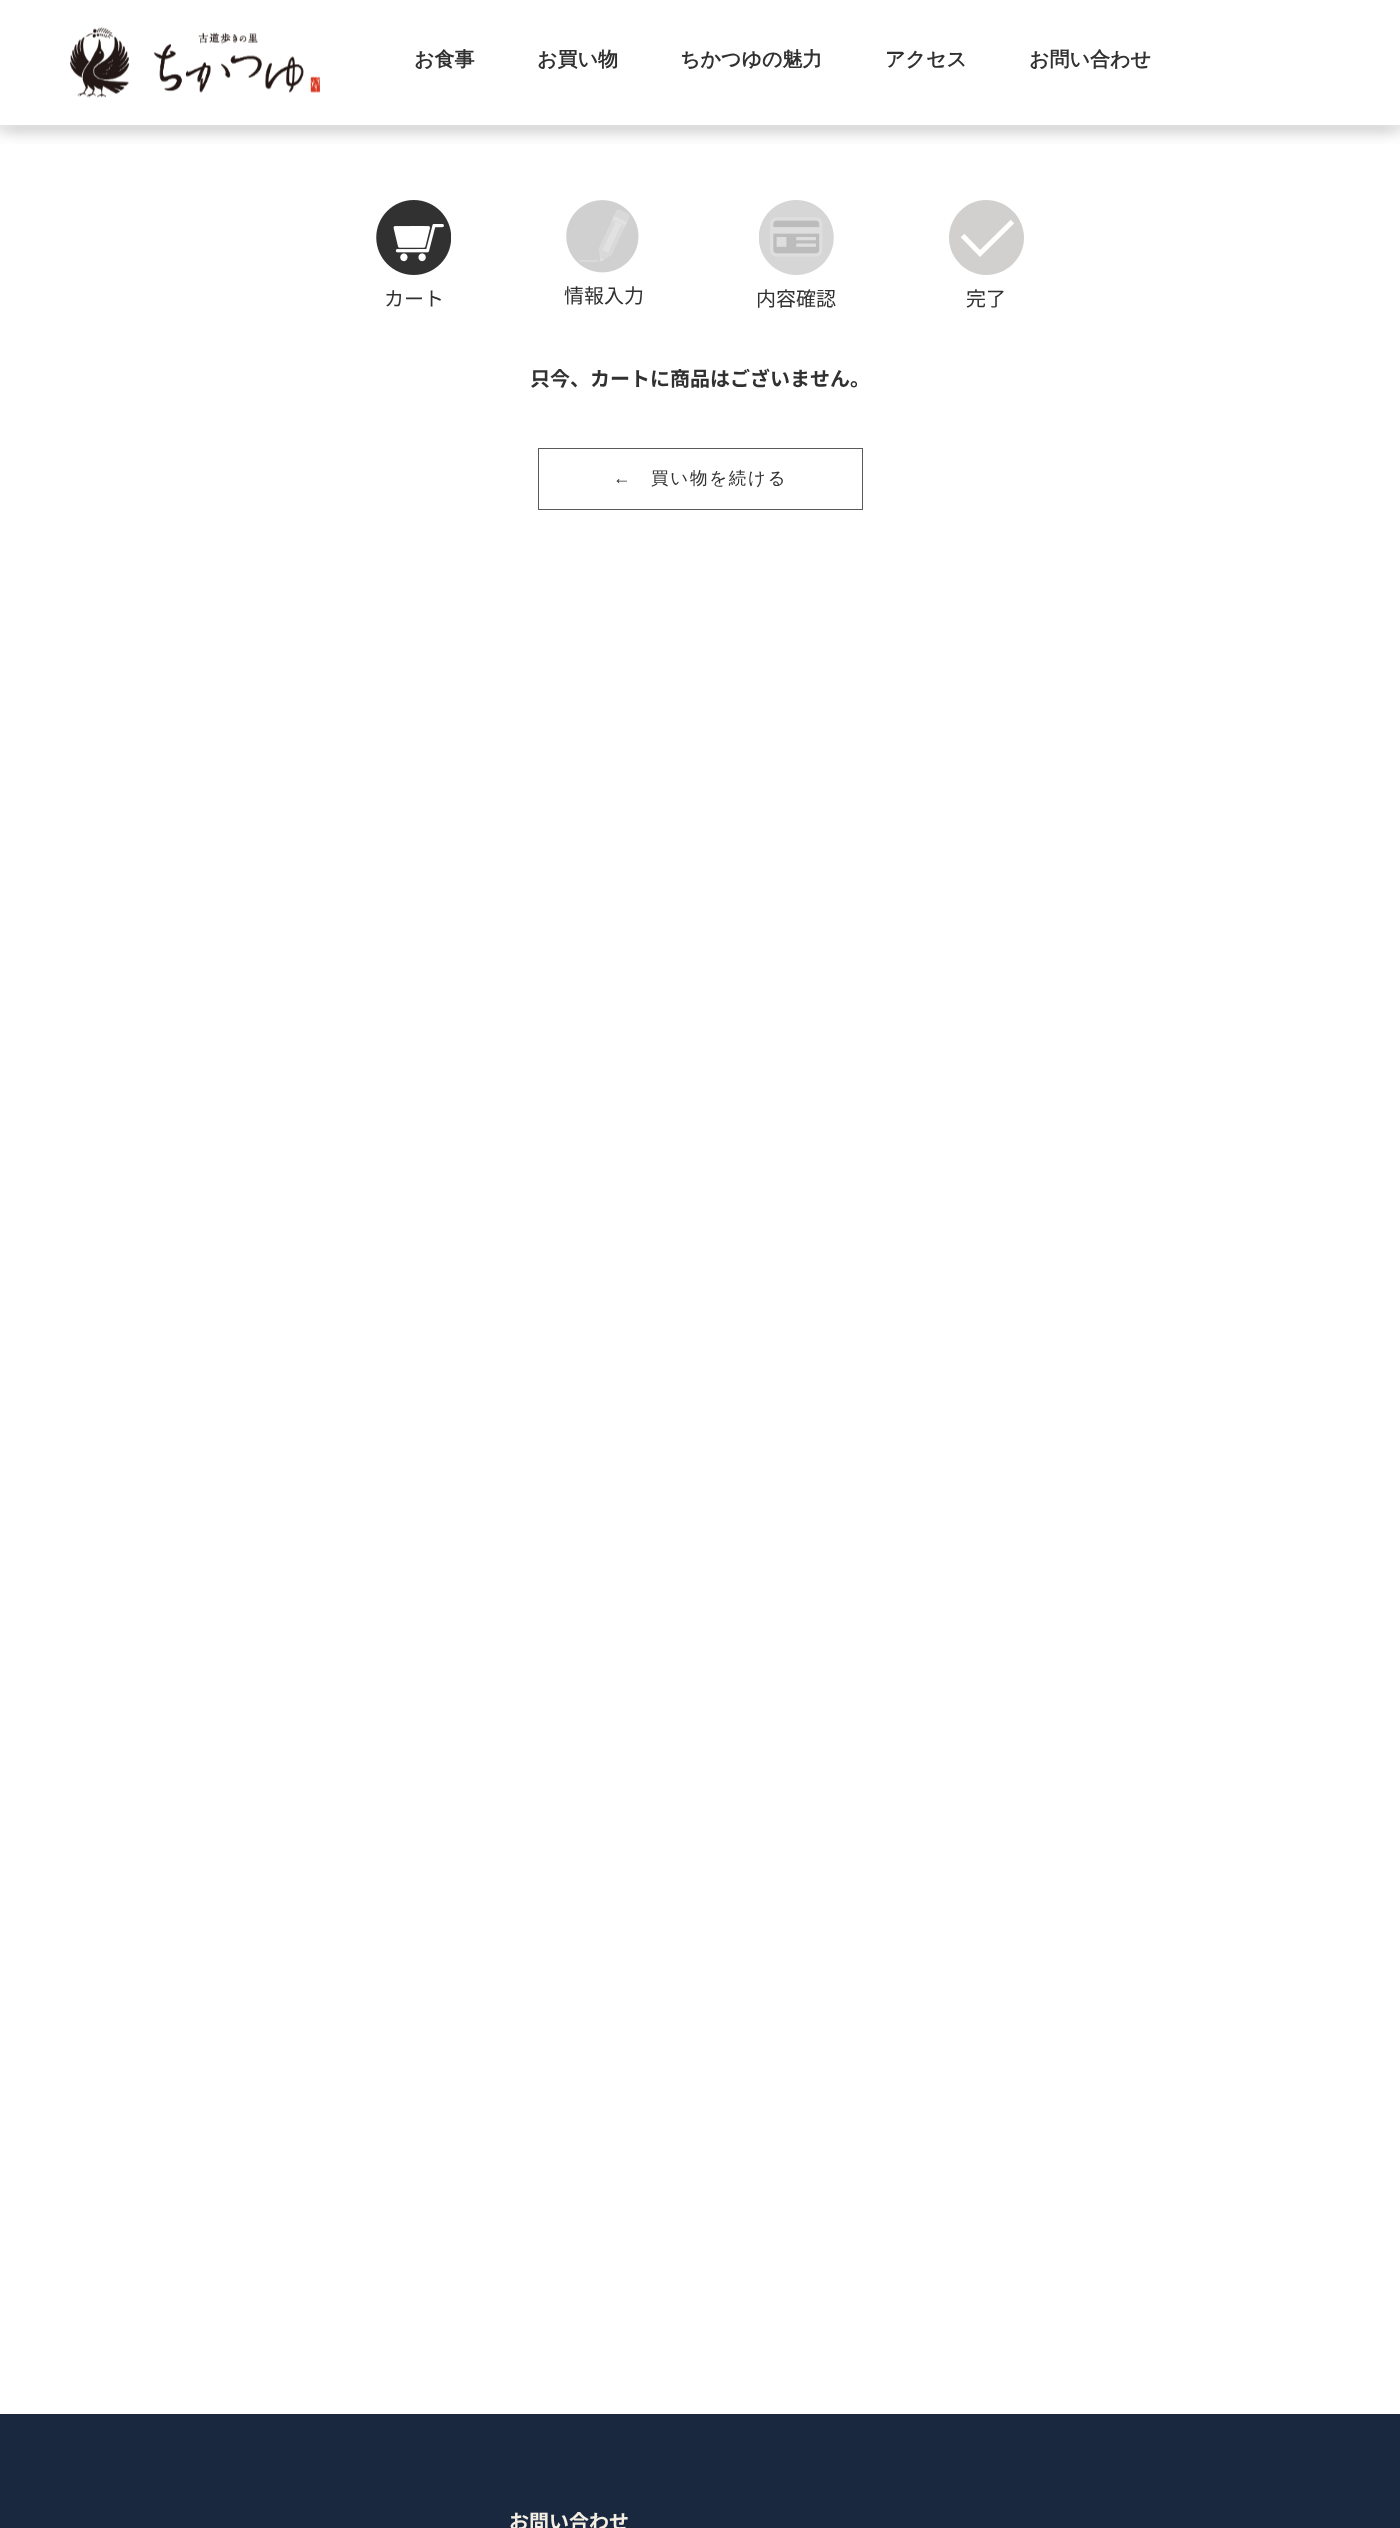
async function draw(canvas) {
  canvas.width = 1400
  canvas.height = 2528
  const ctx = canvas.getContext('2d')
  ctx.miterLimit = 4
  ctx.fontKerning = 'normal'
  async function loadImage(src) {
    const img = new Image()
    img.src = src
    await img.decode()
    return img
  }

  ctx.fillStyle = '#fff'
  ctx.fillRect(0, 0, 1400, 2528)
  ctx.save()
  ctx.beginPath()
  ctx.rect(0, 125, 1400, 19)
  ctx.clip()
  ctx.fillStyle = '#808080'
  ctx.filter = 'blur(9.5px)'
  ctx.beginPath()
  ctx.rect(0, 0, 1400, 125)
  ctx.fill()
  ctx.filter = 'none'
  ctx.restore()
  ctx.filter = 'blur(6px)'
  ctx.beginPath()
  ctx.rect(0, 0, 1400, 125)
  ctx.fill()
  ctx.filter = 'none'
  ctx.drawImage(await loadImage('image0.png'), 70, 27, 250, 71)
  ctx.font = 'bold 20px WenQuanYi Zen Hei'
  ctx.fillStyle = '#313131'
  ctx.fillText('お食事', 414, 66)
  ctx.fillText('お買い物', 537, 66)
  ctx.fillText('ちかつゆの魅力', 680, 66)
  ctx.fillText('アクセス', 885, 66)
  ctx.fillText('お問い合わせ', 1029, 66)
  ctx.drawImage(await loadImage('image1.png'), 376, 200, 75, 75)
  ctx.font = '20px Noto Sans JP'
  ctx.fillText('カート', 384, 306)
  ctx.drawImage(await loadImage('image2.png'), 566, 200, 73, 73)
  ctx.fillText('情報入力', 564, 303)
  ctx.drawImage(await loadImage('image3.png'), 759, 200, 75, 75)
  ctx.fillText('内容確認', 756, 306)
  ctx.fillStyle = '#d1d0cf'
  ctx.beginPath()
  ctx.moveTo(949, 238)
  ctx.bezierCurveTo(949, 217, 966, 200, 986, 200)
  ctx.bezierCurveTo(1007, 200, 1024, 217, 1024, 238)
  ctx.bezierCurveTo(1024, 258, 1007, 275, 986, 275)
  ctx.bezierCurveTo(966, 275, 949, 258, 949, 238)
  ctx.closePath()
  ctx.fill()
  ctx.beginPath()
  ctx.moveTo(962.5, 235.5)
  ctx.lineTo(980, 253.5)
  ctx.lineTo(1012.5, 221.5)
  ctx.strokeStyle = '#fff'
  ctx.lineWidth = 5
  ctx.stroke()
  ctx.fillStyle = '#313131'
  ctx.fillText('完了', 966, 306)
  ctx.font = 'bold 20px Noto Sans JP'
  ctx.fillText('只今、カートに商品はございません。', 530, 386)
  ctx.strokeStyle = '#5a5a5a'
  ctx.lineWidth = 1
  ctx.strokeRect(538.5, 448.5, 324, 61)
  ctx.letterSpacing = '1.75px'
  ctx.font = '17.5px Liberation Sans'
  ctx.fillText('←', 613, 484)
  ctx.font = '500 17.5px WenQuanYi Zen Hei'
  ctx.fillText('買い物を続ける', 651, 484)
  ctx.fillStyle = '#19273f'
  ctx.fillRect(0, 2414, 1400, 114)
  ctx.letterSpacing = '0px'
  ctx.font = 'bold 20px Noto Sans JP'
  ctx.fillStyle = '#f4efe2'
  ctx.fillText('お問い合わせ', 509, 2529)
}

draw(document.querySelector('canvas'))
